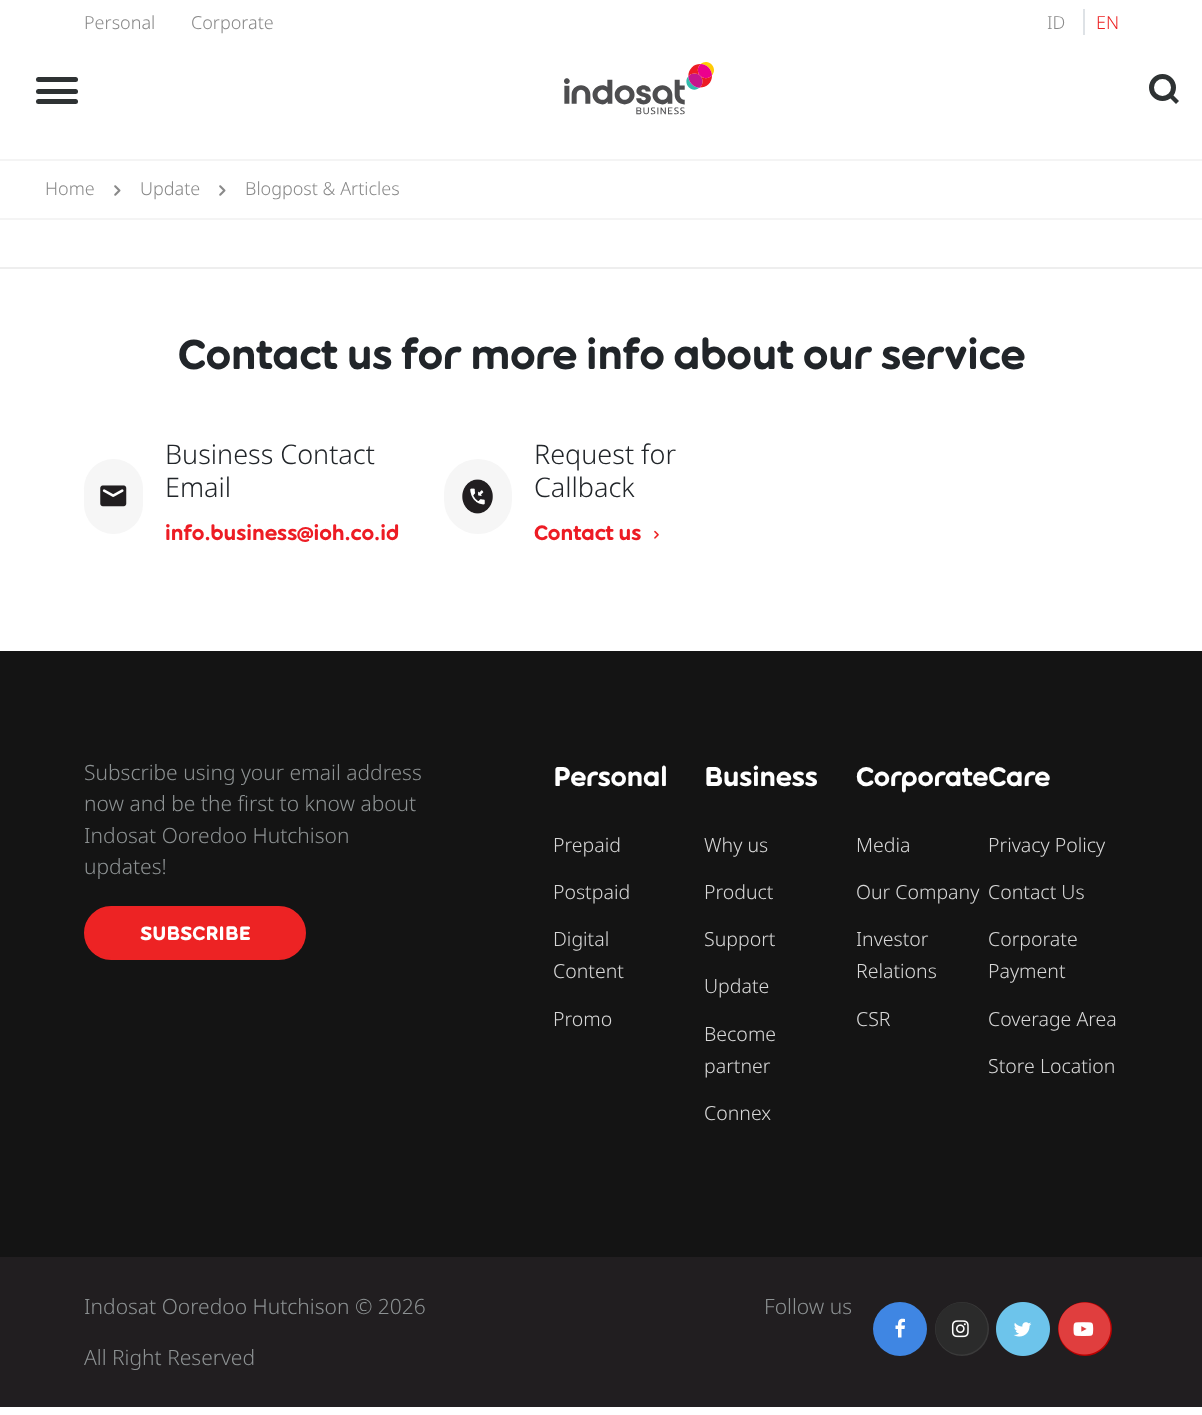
async function draw(canvas) {
  canvas.width = 1202
  canvas.height = 1415
  const ctx = canvas.getContext('2d')
  ctx.miterLimit = 4
  ctx.fontKerning = 'normal'
  async function loadImage(src) {
    const img = new Image()
    img.src = src
    await img.decode()
    return img
  }

  ctx.fillStyle = '#fff'
  ctx.fillRect(0, 0, 1202, 1415)
  ctx.font = '300 18px Noto Sans'
  ctx.fillStyle = '#898989'
  ctx.fillText('Personal', 84, 29)
  ctx.fillText('Corporate', 191, 29)
  ctx.fillText('ID', 1047, 29)
  ctx.fillStyle = '#dee2e6'
  ctx.fillRect(1083, 9, 2, 26)
  ctx.fillStyle = '#ed2324'
  ctx.fillText('EN', 1096, 29)
  ctx.drawImage(await loadImage('image0.png'), 564, 62, 150, 53)
  ctx.fillStyle = '#2e3233'
  ctx.beginPath()
  ctx.roundRect(36, 89, 42, 5, 2.5)
  ctx.fill()
  ctx.beginPath()
  ctx.roundRect(36, 77, 42, 5, 2.5)
  ctx.fill()
  ctx.beginPath()
  ctx.roundRect(36, 99, 42, 5, 2.5)
  ctx.fill()
  ctx.beginPath()
  ctx.arc(1162.5, 87.5, 11, 0, 2 * Math.PI)
  ctx.strokeStyle = '#2e3233'
  ctx.lineWidth = 5
  ctx.stroke()
  ctx.beginPath()
  ctx.moveTo(1170.5, 92.5)
  ctx.lineTo(1179, 101)
  ctx.lineTo(1176, 104)
  ctx.lineTo(1167.5, 95.5)
  ctx.closePath()
  ctx.fill()
  ctx.fillStyle = '#f4f4f4'
  ctx.fillRect(0, 159, 1202, 2)
  ctx.fillRect(0, 218, 1202, 2)
  ctx.fillStyle = '#898989'
  ctx.fillText('Home', 45, 195)
  ctx.drawImage(await loadImage('image1.png'), 114, 185, 7, 11)
  ctx.fillText('Update', 140, 195)
  ctx.drawImage(await loadImage('image1.png'), 219, 185, 7, 11)
  ctx.fillText('Blogpost & Articles', 245, 195)
  ctx.fillStyle = '#eee'
  ctx.fillRect(0, 267, 1202, 2)
  ctx.font = '900 42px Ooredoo'
  ctx.fillStyle = '#212529'
  ctx.fillText('Contact us for more info about our service', 178, 369)
  ctx.fillStyle = '#f6f6f6'
  ctx.beginPath()
  ctx.roundRect(84, 459, 59, 75, 29.5)
  ctx.fill()
  ctx.drawImage(await loadImage('image2.png'), 100, 485, 27, 22)
  ctx.font = '300 27px Noto Sans'
  ctx.fillStyle = '#212529'
  ctx.fillText('Business Contact', 165, 464)
  ctx.fillText('Email', 165, 497)
  ctx.font = '900 21px Ooredoo'
  ctx.fillStyle = '#ed1c24'
  ctx.fillText('info.business@ioh.co.id', 165, 540)
  ctx.fillStyle = '#f6f6f6'
  ctx.beginPath()
  ctx.roundRect(444, 459, 68, 75, 34)
  ctx.fill()
  ctx.drawImage(await loadImage('image3.png'), 462, 479, 31, 35)
  ctx.font = '300 27px Noto Sans'
  ctx.fillStyle = '#212529'
  ctx.fillText('Request for', 534, 464)
  ctx.fillText('Callback', 534, 497)
  ctx.font = '900 21px Ooredoo'
  ctx.fillStyle = '#ed1c24'
  ctx.fillText('Contact us', 534, 540)
  ctx.drawImage(await loadImage('image4.png'), 654, 530, 5, 9)
  ctx.fillStyle = '#141414'
  ctx.fillRect(0, 651, 1202, 606)
  ctx.font = '300 21px Noto Sans'
  ctx.fillStyle = '#8d9293'
  ctx.fillText('Subscribe using your email address', 84, 780)
  ctx.fillText('now and be the first to know about', 84, 811)
  ctx.fillText('Indosat Ooredoo Hutchison', 84, 843)
  ctx.fillText('updates!', 84, 874)
  ctx.fillStyle = '#ed2324'
  ctx.beginPath()
  ctx.roundRect(85, 907, 220, 52, 26)
  ctx.fill()
  ctx.strokeStyle = '#ed2324'
  ctx.lineWidth = 2
  ctx.stroke()
  ctx.font = '900 19.5px Ooredoo'
  ctx.fillStyle = '#fff'
  ctx.fillText('SUBSCRIBE', 140, 940)
  ctx.font = '900 27px Ooredoo'
  ctx.fillText('Personal', 553, 786)
  ctx.font = '300 19.5px Noto Sans'
  ctx.fillStyle = '#d8d8d8'
  ctx.fillText('Prepaid', 553, 852)
  ctx.fillText('Postpaid', 553, 899)
  ctx.fillText('Digital', 553, 946)
  ctx.fillText('Content', 553, 978)
  ctx.fillText('Promo', 553, 1026)
  ctx.font = '900 27px Ooredoo'
  ctx.fillStyle = '#fff'
  ctx.fillText('Business', 704, 786)
  ctx.font = '300 19.5px Noto Sans'
  ctx.fillStyle = '#d8d8d8'
  ctx.fillText('Why us', 704, 852)
  ctx.fillText('Product', 704, 899)
  ctx.fillText('Support', 704, 946)
  ctx.fillText('Update', 704, 993)
  ctx.fillText('Become', 704, 1041)
  ctx.fillText('partner', 704, 1073)
  ctx.fillText('Connex', 704, 1120)
  ctx.font = '900 27px Ooredoo'
  ctx.fillStyle = '#fff'
  ctx.fillText('CorporateCare', 856, 786)
  ctx.font = '300 19.5px Noto Sans'
  ctx.fillStyle = '#d8d8d8'
  ctx.fillText('Media', 856, 852)
  ctx.fillText('Our Company', 856, 899)
  ctx.fillText('Investor', 856, 946)
  ctx.fillText('Relations', 856, 978)
  ctx.fillText('CSR', 856, 1026)
  ctx.fillText('Privacy Policy', 988, 852)
  ctx.fillText('Contact Us', 988, 899)
  ctx.fillText('Corporate', 988, 946)
  ctx.fillText('Payment', 988, 978)
  ctx.fillText('Coverage Area', 988, 1026)
  ctx.fillText('Store Location', 988, 1073)
  ctx.fillStyle = '#211e20'
  ctx.fillRect(0, 1257, 1202, 150)
  ctx.font = '300 21px Noto Sans'
  ctx.fillStyle = '#8d9293'
  ctx.fillText('Indosat Ooredoo Hutchison © 2026', 84, 1314)
  ctx.fillText('All Right Reserved', 84, 1365)
  ctx.fillText('Follow us', 764, 1314)
  ctx.fillStyle = '#3f86e3'
  ctx.beginPath()
  ctx.arc(900, 1329, 27, 0, 2 * Math.PI)
  ctx.fill()
  ctx.fillStyle = '#fff'
  ctx.beginPath()
  ctx.moveTo(901.5, 1337.5)
  ctx.lineTo(901.5, 1329)
  ctx.lineTo(904.5, 1329)
  ctx.lineTo(905, 1325.5)
  ctx.lineTo(901.5, 1325.5)
  ctx.bezierCurveTo(901.5, 1322, 901.5, 1322, 905, 1322)
  ctx.lineTo(905, 1319)
  ctx.bezierCurveTo(899, 1318, 898, 1320.5, 898, 1325.5)
  ctx.lineTo(895.5, 1325.5)
  ctx.lineTo(895.5, 1329)
  ctx.lineTo(898, 1329)
  ctx.lineTo(898, 1337.5)
  ctx.closePath()
  ctx.fill()
  ctx.fillStyle = '#3b3b3b'
  ctx.beginPath()
  ctx.arc(962, 1329, 27, 0, 2 * Math.PI)
  ctx.fill()
  ctx.drawImage(await loadImage('image5.png'), 935, 1302, 53, 53)
  ctx.drawImage(await loadImage('image6.png'), 996, 1302, 54, 54)
  ctx.fillStyle = '#b00'
  ctx.beginPath()
  ctx.arc(1085, 1329, 27, 0, 2 * Math.PI)
  ctx.fill()
  ctx.drawImage(await loadImage('image7.png'), 1058, 1302, 53, 53)
}

draw(document.querySelector('canvas'))
